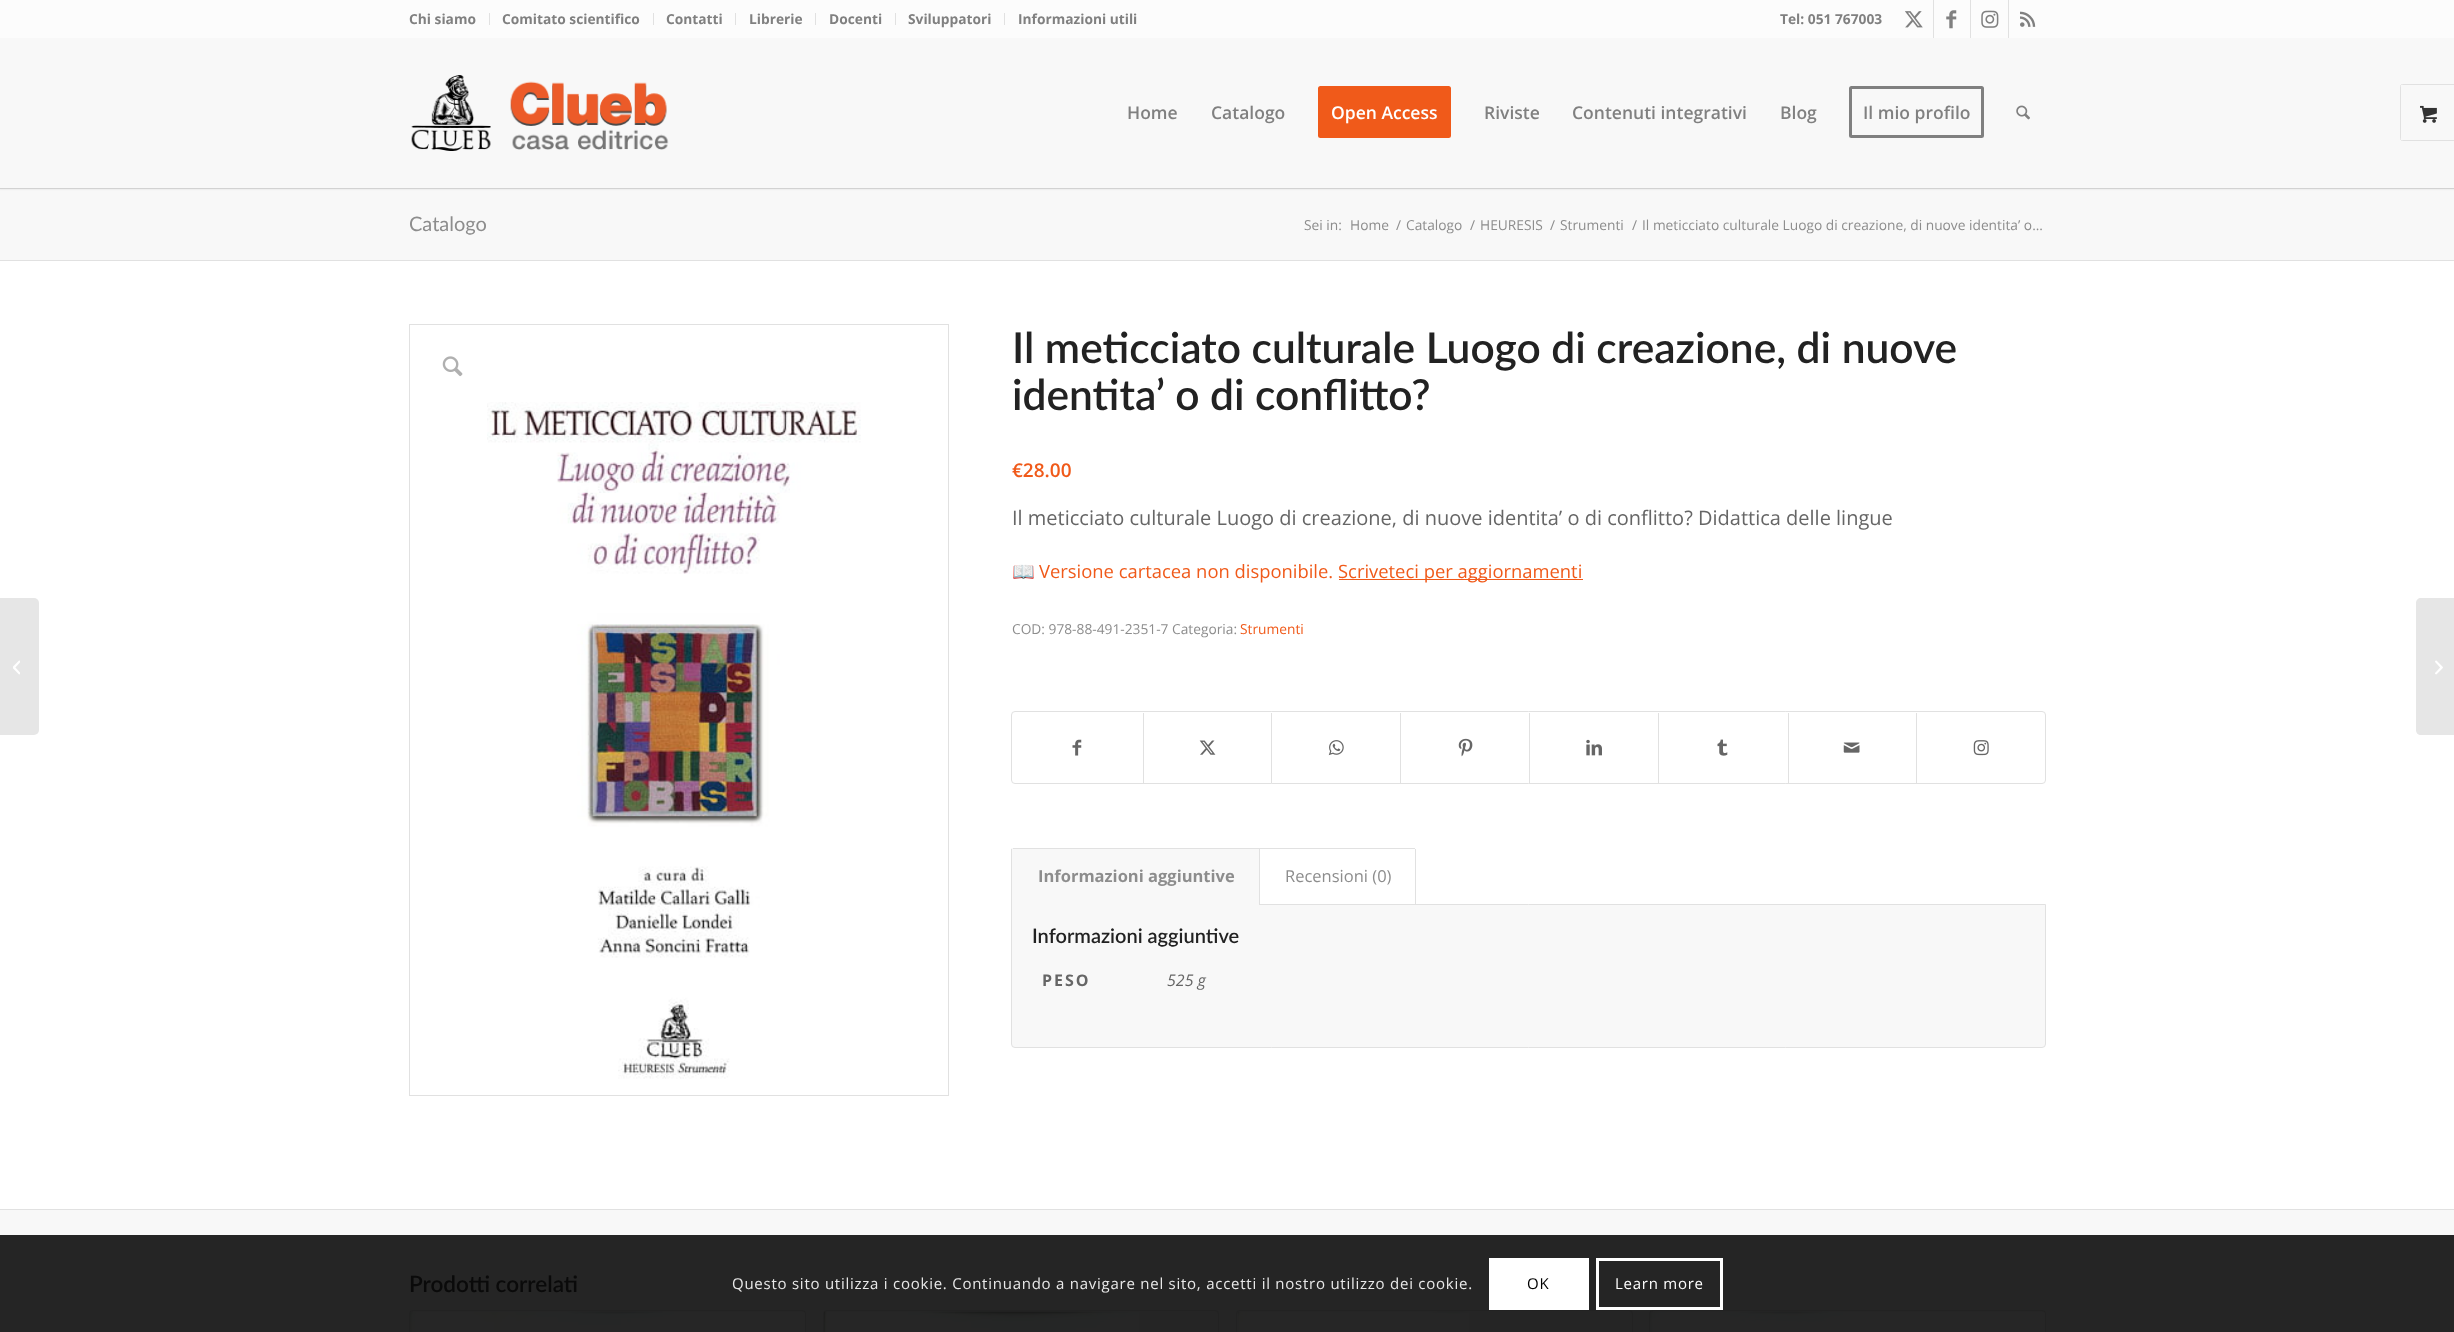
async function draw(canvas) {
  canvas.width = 2454
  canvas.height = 1332
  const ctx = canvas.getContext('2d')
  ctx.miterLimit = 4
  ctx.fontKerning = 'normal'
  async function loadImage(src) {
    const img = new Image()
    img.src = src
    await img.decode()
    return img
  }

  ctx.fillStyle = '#f8f8f8'
  ctx.fillRect(0, 0, 2454, 1332)
  ctx.fillStyle = '#e1e1e1'
  ctx.fillRect(0, 188, 2454, 1)
  ctx.fillStyle = '#0000001a'
  ctx.filter = 'blur(1px)'
  ctx.beginPath()
  ctx.rect(-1, -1, 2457, 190)
  ctx.fill()
  ctx.filter = 'none'
  ctx.fillStyle = '#fcfcfc'
  ctx.fillRect(0, 0, 2454, 38)
  ctx.fillStyle = '#e1e1e1'
  ctx.fillRect(489, 13, 1, 12)
  ctx.font = 'bold 13.75px Open Sans'
  ctx.fillStyle = '#808080'
  ctx.fillText('Chi siamo', 409, 24)
  ctx.fillStyle = '#e1e1e1'
  ctx.fillRect(653, 13, 1, 12)
  ctx.fillStyle = '#808080'
  ctx.fillText('Comitato scientifico', 502, 24)
  ctx.fillStyle = '#e1e1e1'
  ctx.fillRect(735, 13, 1, 12)
  ctx.fillStyle = '#808080'
  ctx.fillText('Contatti', 666, 24)
  ctx.fillStyle = '#e1e1e1'
  ctx.fillRect(815, 13, 1, 12)
  ctx.fillStyle = '#808080'
  ctx.fillText('Librerie', 749, 24)
  ctx.fillStyle = '#e1e1e1'
  ctx.fillRect(895, 13, 1, 12)
  ctx.fillStyle = '#808080'
  ctx.fillText('Docenti', 829, 24)
  ctx.fillStyle = '#e1e1e1'
  ctx.fillRect(1004, 13, 1, 12)
  ctx.fillStyle = '#808080'
  ctx.fillText('Sviluppatori', 908, 24)
  ctx.fillText('Informazioni utili', 1018, 24)
  ctx.fillText('Tel: 051 767003', 1780, 24)
  ctx.fillStyle = '#e1e1e1'
  ctx.fillRect(1933, 0, 1, 38)
  ctx.drawImage(await loadImage('image0.png'), 1905, 11, 18, 17)
  ctx.fillRect(1970, 0, 1, 38)
  ctx.drawImage(await loadImage('image1.png'), 1946, 10, 11, 19)
  ctx.fillRect(2008, 0, 1, 38)
  ctx.drawImage(await loadImage('image2.png'), 1981, 10, 18, 18)
  ctx.drawImage(await loadImage('image3.png'), 2020, 11, 16, 16)
  ctx.fillStyle = '#f8f8f8'
  ctx.fillRect(0, 38, 2454, 150)
  ctx.drawImage(await loadImage('image4.png'), 411, 75, 258, 76)
  ctx.font = '600 17.5px Open Sans'
  ctx.fillStyle = '#808080'
  ctx.fillText('Home', 1127, 119)
  ctx.fillText('Catalogo', 1211, 119)
  ctx.fillStyle = '#f05a1a'
  ctx.beginPath()
  ctx.roundRect(1319.5, 87.5, 130, 49, 1)
  ctx.fill()
  ctx.strokeStyle = '#f05a1a'
  ctx.lineWidth = 3
  ctx.stroke()
  ctx.fillStyle = '#fff'
  ctx.fillText('Open Access', 1331, 119)
  ctx.fillStyle = '#808080'
  ctx.fillText('Riviste', 1484, 119)
  ctx.fillText('Contenuti integrativi', 1572, 119)
  ctx.fillText('Blog', 1780, 119)
  ctx.beginPath()
  ctx.roundRect(1850.5, 87.5, 132, 49, 1)
  ctx.strokeStyle = '#808080'
  ctx.stroke()
  ctx.fillText('Il mio profilo', 1863, 119)
  ctx.drawImage(await loadImage('image5.png'), 2016, 105, 14, 15)
  ctx.beginPath()
  ctx.roundRect(2400.5, 84.5, 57, 56, 2)
  ctx.strokeStyle = '#e1e1e1'
  ctx.lineWidth = 1
  ctx.stroke()
  ctx.fillStyle = '#f8f8f8'
  ctx.fillRect(2401, 85, 1, 55)
  ctx.drawImage(await loadImage('image6.png'), 2420, 105, 17, 18)
  ctx.fillStyle = '#fff'
  ctx.fillRect(0, 261, 2454, 948)
  ctx.fillStyle = '#e6e6e6'
  ctx.beginPath()
  ctx.roundRect(0, 598, 39, 137, [0, 5, 5, 0])
  ctx.fill()
  ctx.drawImage(await loadImage('image7.png'), 13, 660, 7, 15)
  ctx.fillStyle = '#252525'
  ctx.fillRect(0, 1235, 2454, 97)
  ctx.font = '20px Lato'
  ctx.fillStyle = '#8d8d8d'
  ctx.fillText('Catalogo', 409, 231)
  ctx.font = '13.75px Open Sans'
  ctx.fillText('Sei in:', 1304, 230)
  ctx.fillText('Home', 1350, 230)
  ctx.fillText('/', 1396, 230)
  ctx.fillText('Catalogo', 1406, 230)
  ctx.fillText('/', 1470, 230)
  ctx.fillText('HEURESIS', 1480, 230)
  ctx.fillText('/', 1550, 230)
  ctx.fillText('Strumenti', 1560, 230)
  ctx.fillText('/', 1632, 230)
  ctx.fillText('Il meticciato culturale Luogo di creazione, di nuove identita’ o...', 1642, 230)
  ctx.fillStyle = '#e1e1e1'
  ctx.fillRect(0, 260, 2454, 1)
  ctx.strokeRect(409.5, 324.5, 539, 771)
  ctx.drawImage(await loadImage('image8.png'), 487, 402, 374, 677)
  ctx.drawImage(await loadImage('image9.png'), 442, 356, 21, 21)
  ctx.font = '600 42.5px Lato'
  ctx.fillStyle = '#222'
  ctx.fillText('Il meticciato culturale Luogo di creazione, di nuove', 1012, 363)
  ctx.fillText('identita’ o di conflitto?', 1012, 410)
  ctx.font = '600 19px Open Sans'
  ctx.fillStyle = '#f05a1a'
  ctx.fillText('€28.00', 1012, 477)
  ctx.font = '20px Open Sans'
  ctx.fillStyle = '#666'
  ctx.fillText('Il meticciato culturale Luogo di creazione, di nuove identita’ o di conflitto? Didattica delle lingue', 1012, 525)
  ctx.font = '18.4px Noto Color Emoji'
  ctx.fillStyle = '#f05a1a'
  ctx.fillText('📖', 1012, 578)
  ctx.font = '18.4px Open Sans'
  ctx.fillText('Versione cartacea non disponibile.', 1039, 578)
  ctx.fillRect(1339, 579, 244, 1)
  ctx.fillText('Scriveteci per aggiornamenti', 1338, 578)
  ctx.font = '13.75px Open Sans'
  ctx.fillStyle = '#8d8d8d'
  ctx.fillText('COD: 978-88-491-2351-7 Categoria:', 1012, 634)
  ctx.fillStyle = '#f05a1a'
  ctx.fillText('Strumenti', 1240, 634)
  ctx.beginPath()
  ctx.roundRect(1011.5, 711.5, 1034, 72, 3.5)
  ctx.stroke()
  ctx.drawImage(await loadImage('image10.png'), 1072, 739, 10, 17)
  ctx.fillStyle = '#e1e1e1'
  ctx.fillRect(1143, 713, 1, 70)
  ctx.drawImage(await loadImage('image11.png'), 1199, 740, 17, 15)
  ctx.fillRect(1271, 713, 1, 70)
  ctx.drawImage(await loadImage('image12.png'), 1328, 740, 16, 16)
  ctx.fillRect(1400, 713, 1, 70)
  ctx.drawImage(await loadImage('image13.png'), 1458, 738, 15, 19)
  ctx.fillRect(1529, 713, 1, 70)
  ctx.drawImage(await loadImage('image14.png'), 1586, 739, 16, 17)
  ctx.fillRect(1658, 713, 1, 70)
  ctx.drawImage(await loadImage('image15.png'), 1717, 739, 11, 17)
  ctx.fillRect(1788, 713, 1, 70)
  ctx.drawImage(await loadImage('image16.png'), 1843, 742, 17, 11)
  ctx.fillRect(1916, 713, 1, 70)
  ctx.drawImage(await loadImage('image17.png'), 1973, 740, 16, 16)
  ctx.fillStyle = '#f8f8f8'
  ctx.beginPath()
  ctx.roundRect(1011.5, 904.5, 1034, 143, [0, 0, 3.5, 3.5])
  ctx.fill()
  ctx.stroke()
  ctx.fillRect(1011, 848, 248, 57)
  ctx.fillStyle = '#e1e1e1'
  ctx.fillRect(1259, 848, 156, 1)
  ctx.fillRect(1013, 848, 247, 1)
  ctx.fillRect(1259, 848, 1, 57)
  ctx.fillRect(1011, 849, 1, 56)
  ctx.font = 'bold 16.5px Open Sans'
  ctx.fillStyle = '#8d8d8d'
  ctx.fillText('Informazioni aggiuntive', 1038, 882)
  ctx.fillStyle = '#e1e1e1'
  ctx.fillRect(1415, 849, 1, 56)
  ctx.font = '16.5px Open Sans'
  ctx.fillStyle = '#8d8d8d'
  ctx.fillText('Recensioni (0)', 1285, 882)
  ctx.font = '600 20px Lato'
  ctx.fillStyle = '#222'
  ctx.fillText('Informazioni aggiuntive', 1032, 943)
  ctx.letterSpacing = '2px'
  ctx.font = 'bold 16px Open Sans'
  ctx.fillStyle = '#666'
  ctx.fillText('PESO', 1042, 986)
  ctx.letterSpacing = '0px'
  ctx.font = 'italic 16px Open Sans'
  ctx.fillText('525 g', 1167, 986)
  ctx.fillStyle = '#e1e1e1'
  ctx.fillRect(0, 1209, 2454, 1)
  ctx.font = '600 22.5px Lato'
  ctx.fillStyle = '#0a0a0a'
  ctx.fillText('Prodotti correlati', 409, 1292)
  ctx.beginPath()
  ctx.roundRect(409.5, 1310.5, 396, 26, 3.5)
  ctx.strokeStyle = '#222'
  ctx.stroke()
  ctx.drawImage(await loadImage('image18.png'), 410, 1311, 395, 21)
  ctx.beginPath()
  ctx.roundRect(823.5, 1310.5, 395, 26, 3.5)
  ctx.stroke()
  ctx.drawImage(await loadImage('image19.png'), 824, 1311, 315, 21)
  ctx.beginPath()
  ctx.roundRect(1236.5, 1310.5, 396, 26, 3.5)
  ctx.stroke()
  ctx.drawImage(await loadImage('image20.png'), 1238, 1311, 231, 21)
  ctx.beginPath()
  ctx.roundRect(1649.5, 1310.5, 396, 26, 3.5)
  ctx.stroke()
  ctx.drawImage(await loadImage('image21.png'), 1650, 1311, 395, 21)
  ctx.fillStyle = '#e6e6e6'
  ctx.beginPath()
  ctx.moveTo(2421, 598)
  ctx.lineTo(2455, 598)
  ctx.lineTo(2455, 735)
  ctx.lineTo(2421, 735)
  ctx.bezierCurveTo(2418, 735, 2416, 733, 2416, 730)
  ctx.lineTo(2416, 603)
  ctx.bezierCurveTo(2416, 600, 2418, 598, 2421, 598)
  ctx.closePath()
  ctx.fill()
  ctx.drawImage(await loadImage('image22.png'), 2435, 660, 8, 15)
  ctx.letterSpacing = '0.75px'
  ctx.font = '15px Open Sans'
  ctx.fillStyle = '#e9e9e9'
  ctx.fillText('Questo sito utilizza i cookie. Continuando a navigare nel sito, accetti il nostro utilizzo dei cookie.', 732, 1289)
  ctx.fillStyle = '#fff'
  ctx.fillRect(1489, 1258, 100, 52)
  ctx.fillStyle = '#000'
  ctx.fillText('OK', 1527, 1289)
  ctx.strokeStyle = '#fff'
  ctx.lineWidth = 3
  ctx.strokeRect(1597.5, 1259.5, 124, 49)
  ctx.fillStyle = '#fff'
  ctx.fillText('Learn more', 1615, 1289)
}

draw(document.querySelector('canvas'))
